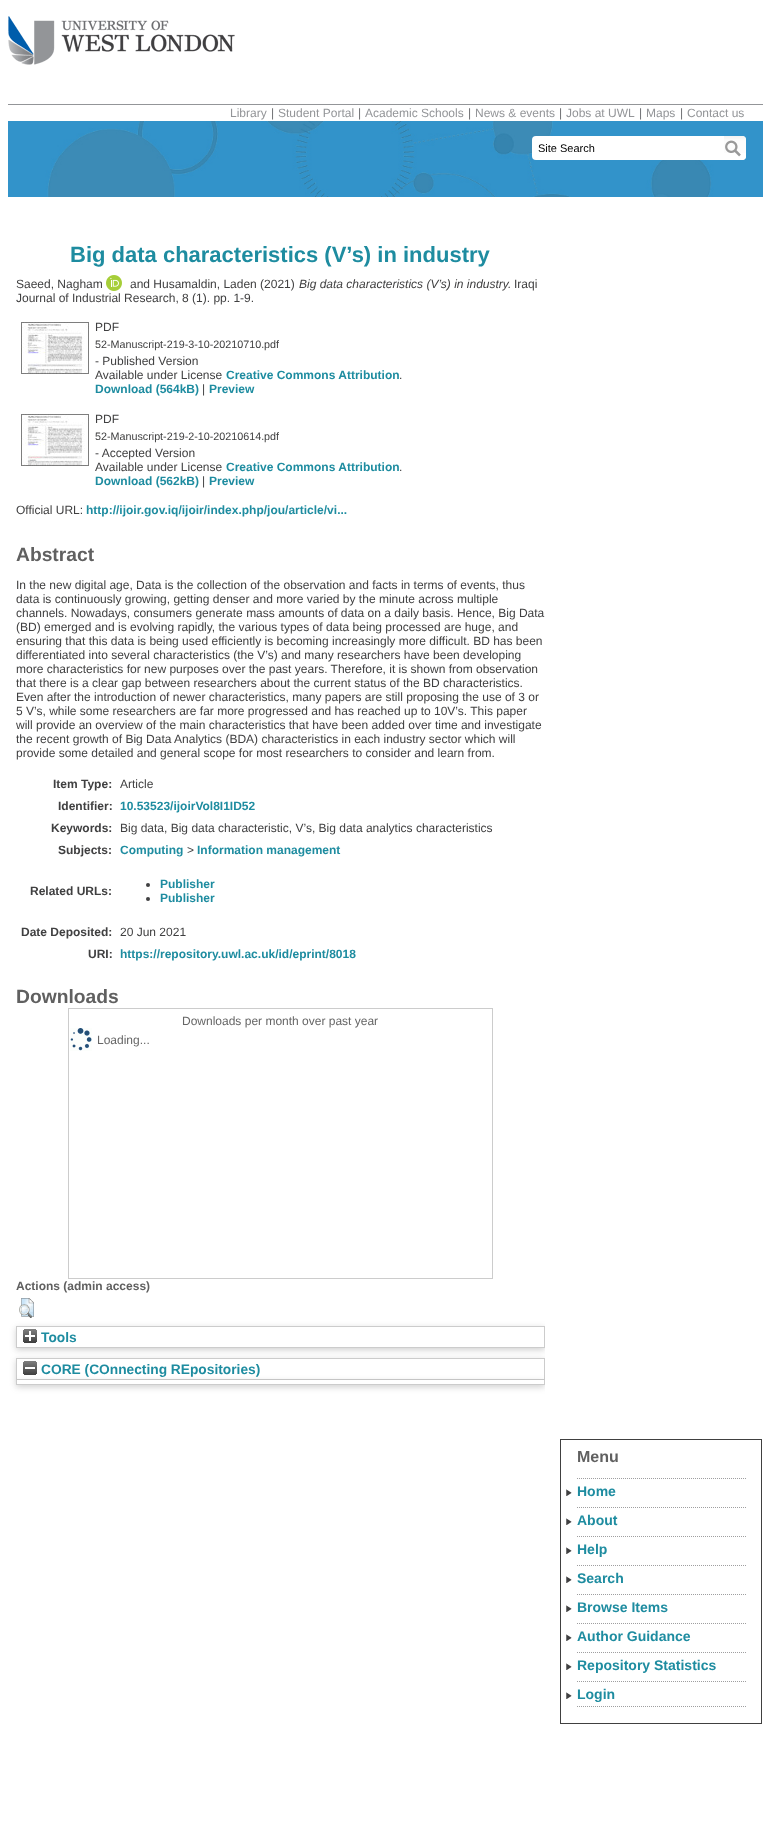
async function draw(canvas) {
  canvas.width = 771
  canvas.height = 1824
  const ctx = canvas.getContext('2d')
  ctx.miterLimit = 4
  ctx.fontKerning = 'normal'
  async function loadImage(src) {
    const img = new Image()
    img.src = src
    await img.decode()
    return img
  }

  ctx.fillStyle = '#fff'
  ctx.fillRect(0, 0, 771, 1824)
  ctx.fillStyle = '#939598'
  ctx.fillRect(8, 104, 755, 1)
  ctx.drawImage(await loadImage('image0.png'), 8, 16, 227, 49)
  ctx.font = '12px Liberation Sans'
  ctx.fillText('Library', 230, 117)
  ctx.fillStyle = '#6d6e71'
  ctx.fillText('|', 271, 117)
  ctx.fillStyle = '#939598'
  ctx.fillText('Student Portal', 278, 117)
  ctx.fillStyle = '#6d6e71'
  ctx.fillText('|', 358, 117)
  ctx.fillStyle = '#939598'
  ctx.fillText('Academic Schools', 365, 117)
  ctx.fillStyle = '#6d6e71'
  ctx.fillText('|', 468, 117)
  ctx.fillStyle = '#939598'
  ctx.fillText('News & events', 475, 117)
  ctx.fillStyle = '#6d6e71'
  ctx.fillText('|', 559, 117)
  ctx.fillStyle = '#939598'
  ctx.fillText('Jobs at UWL', 566, 117)
  ctx.fillStyle = '#6d6e71'
  ctx.fillText('|', 639, 117)
  ctx.fillStyle = '#939598'
  ctx.fillText('Maps', 646, 117)
  ctx.fillStyle = '#6d6e71'
  ctx.fillText('|', 680, 117)
  ctx.fillStyle = '#939598'
  ctx.fillText('Contact us', 687, 117)
  ctx.drawImage(await loadImage('image2.png'), 8, 121, 755, 76)
  ctx.fillStyle = '#fff'
  ctx.beginPath()
  ctx.roundRect(532, 136, 214, 24, 4)
  ctx.fill()
  ctx.drawImage(await loadImage('image1.png'), 724, 136, 22, 24)
  ctx.font = '11px Liberation Sans'
  ctx.fillStyle = '#000'
  ctx.fillText('Site Search', 538, 152)
  ctx.font = 'bold 22px Liberation Sans'
  ctx.fillStyle = '#1e8ca0'
  ctx.fillText('Big data characteristics (V’s) in industry', 70, 262)
  ctx.font = '12px Liberation Sans'
  ctx.fillStyle = '#404041'
  ctx.fillText('Saeed, Nagham', 16, 288)
  ctx.drawImage(await loadImage('image3.png'), 106, 275, 16, 16)
  ctx.fillText('and Husamaldin, Laden (2021)', 130, 288)
  ctx.font = 'italic 12px Liberation Sans'
  ctx.fillText('Big data characteristics (V’s) in industry.', 299, 288)
  ctx.font = '12px Liberation Sans'
  ctx.fillText('Iraqi', 514, 288)
  ctx.fillText('Journal of Industrial Research, 8 (1). pp. 1-9.', 16, 302)
  ctx.drawImage(await loadImage('image4.png'), 21, 322, 68, 52)
  ctx.fillText('PDF', 95, 331)
  ctx.font = '10.75px Liberation Sans'
  ctx.fillText('52-Manuscript-219-3-10-20210710.pdf', 95, 348)
  ctx.font = '12px Liberation Sans'
  ctx.fillText('- Published Version', 95, 365)
  ctx.fillText('Available under License', 95, 379)
  ctx.font = 'bold 12px Liberation Sans'
  ctx.fillStyle = '#1e8ca0'
  ctx.fillText('Creative Commons Attribution', 226, 379)
  ctx.font = '12px Liberation Sans'
  ctx.fillStyle = '#404041'
  ctx.fillText('.', 399, 379)
  ctx.font = 'bold 12px Liberation Sans'
  ctx.fillStyle = '#1e8ca0'
  ctx.fillText('Download (564kB)', 95, 393)
  ctx.font = '12px Liberation Sans'
  ctx.fillStyle = '#404041'
  ctx.fillText('|', 202, 393)
  ctx.font = 'bold 12px Liberation Sans'
  ctx.fillStyle = '#1e8ca0'
  ctx.fillText('Preview', 209, 393)
  ctx.drawImage(await loadImage('image5.png'), 21, 414, 68, 52)
  ctx.font = '12px Liberation Sans'
  ctx.fillStyle = '#404041'
  ctx.fillText('PDF', 95, 423)
  ctx.font = '10.75px Liberation Sans'
  ctx.fillText('52-Manuscript-219-2-10-20210614.pdf', 95, 440)
  ctx.font = '12px Liberation Sans'
  ctx.fillText('- Accepted Version', 95, 457)
  ctx.fillText('Available under License', 95, 471)
  ctx.font = 'bold 12px Liberation Sans'
  ctx.fillStyle = '#1e8ca0'
  ctx.fillText('Creative Commons Attribution', 226, 471)
  ctx.font = '12px Liberation Sans'
  ctx.fillStyle = '#404041'
  ctx.fillText('.', 399, 471)
  ctx.font = 'bold 12px Liberation Sans'
  ctx.fillStyle = '#1e8ca0'
  ctx.fillText('Download (562kB)', 95, 485)
  ctx.font = '12px Liberation Sans'
  ctx.fillStyle = '#404041'
  ctx.fillText('|', 202, 485)
  ctx.font = 'bold 12px Liberation Sans'
  ctx.fillStyle = '#1e8ca0'
  ctx.fillText('Preview', 209, 485)
  ctx.font = '12px Liberation Sans'
  ctx.fillStyle = '#404041'
  ctx.fillText('Official URL:', 16, 514)
  ctx.font = 'bold 12px Liberation Sans'
  ctx.fillStyle = '#1e8ca0'
  ctx.fillText('http://ijoir.gov.iq/ijoir/index.php/jou/article/vi...', 86, 514)
  ctx.font = 'bold 19.25px Liberation Sans'
  ctx.fillStyle = '#606060'
  ctx.fillText('Abstract', 16, 561)
  ctx.font = '12px Liberation Sans'
  ctx.fillStyle = '#404041'
  ctx.fillText('In the new digital age, Data is the collection of the observation and facts in terms of events, thus', 16, 589)
  ctx.fillText('data is continuously growing, getting denser and more varied by the minute across multiple', 16, 603)
  ctx.fillText('channels. Nowadays, consumers generate mass amounts of data on a daily basis. Hence, Big Data', 16, 617)
  ctx.fillText('(BD) emerged and is evolving rapidly, the various types of data being processed are huge, and', 16, 631)
  ctx.fillText('ensuring that this data is being used efficiently is becoming increasingly more difficult. BD has been', 16, 645)
  ctx.fillText('differentiated into several characteristics (the V’s) and many researchers have been developing', 16, 659)
  ctx.fillText('more characteristics for new purposes over the past years. Therefore, it is shown from observation', 16, 673)
  ctx.fillText('that there is a clear gap between researchers about the current status of the BD characteristics.', 16, 687)
  ctx.fillText('Even after the introduction of newer characteristics, many papers are still proposing the use of 3 or', 16, 701)
  ctx.fillText('5 V’s, while some researchers are far more progressed and has reached up to 10V’s. This paper', 16, 715)
  ctx.fillText('will provide an overview of the main characteristics that have been added over time and investigate', 16, 729)
  ctx.fillText('the recent growth of Big Data Analytics (BDA) characteristics in each industry sector which will', 16, 743)
  ctx.fillText('provide some detailed and general scope for most researchers to consider and learn from.', 16, 757)
  ctx.font = 'bold 12px Liberation Sans'
  ctx.fillText('Item Type:', 53, 788)
  ctx.font = '12px Liberation Sans'
  ctx.fillText('Article', 120, 788)
  ctx.font = 'bold 12px Liberation Sans'
  ctx.fillText('Identifier:', 58, 810)
  ctx.fillStyle = '#1e8ca0'
  ctx.fillText('10.53523/ijoirVol8I1ID52', 120, 810)
  ctx.fillStyle = '#404041'
  ctx.fillText('Keywords:', 51, 832)
  ctx.font = '12px Liberation Sans'
  ctx.fillText('Big data, Big data characteristic, V’s, Big data analytics characteristics', 120, 832)
  ctx.font = 'bold 12px Liberation Sans'
  ctx.fillText('Subjects:', 58, 854)
  ctx.fillStyle = '#1e8ca0'
  ctx.fillText('Computing', 120, 854)
  ctx.font = '12px Liberation Sans'
  ctx.fillStyle = '#404041'
  ctx.fillText('>', 187, 854)
  ctx.font = 'bold 12px Liberation Sans'
  ctx.fillStyle = '#1e8ca0'
  ctx.fillText('Information management', 197, 854)
  ctx.fillStyle = '#404041'
  ctx.fillText('Related URLs:', 30, 895)
  ctx.beginPath()
  ctx.arc(148, 885, 2, 0, 2 * Math.PI)
  ctx.fill()
  ctx.fillStyle = '#1e8ca0'
  ctx.fillText('Publisher', 160, 888)
  ctx.fillStyle = '#404041'
  ctx.beginPath()
  ctx.arc(148, 899, 2, 0, 2 * Math.PI)
  ctx.fill()
  ctx.fillStyle = '#1e8ca0'
  ctx.fillText('Publisher', 160, 902)
  ctx.fillStyle = '#404041'
  ctx.fillText('Date Deposited:', 21, 936)
  ctx.font = '12px Liberation Sans'
  ctx.fillText('20 Jun 2021', 120, 936)
  ctx.font = 'bold 12px Liberation Sans'
  ctx.fillText('URI:', 88, 958)
  ctx.fillStyle = '#1e8ca0'
  ctx.fillText('https://repository.uwl.ac.uk/id/eprint/8018', 120, 958)
  ctx.font = 'bold 19.25px Liberation Sans'
  ctx.fillStyle = '#606060'
  ctx.fillText('Downloads', 16, 1003)
  ctx.strokeStyle = '#ccc'
  ctx.strokeRect(68.5, 1008.5, 424, 270)
  ctx.font = '12px Liberation Sans'
  ctx.fillStyle = '#666'
  ctx.fillText('Downloads per month over past year', 182, 1025)
  ctx.drawImage(await loadImage('image6.png'), 70, 1028, 22, 23)
  ctx.fillText('Loading...', 97, 1044)
  ctx.font = 'bold 12px Liberation Sans'
  ctx.fillStyle = '#606060'
  ctx.fillText('Actions (admin access)', 16, 1290)
  ctx.drawImage(await loadImage('image7.png'), 19, 1298, 15, 20)
  ctx.save()
  ctx.beginPath()
  ctx.rect(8, 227, 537, 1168)
  ctx.clip()
  ctx.beginPath()
  ctx.moveTo(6, 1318)
  ctx.lineTo(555, 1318)
  ctx.lineTo(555, 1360)
  ctx.lineTo(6, 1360)
  ctx.closePath()
  ctx.moveTo(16, 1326)
  ctx.lineTo(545, 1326)
  ctx.lineTo(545, 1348)
  ctx.lineTo(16, 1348)
  ctx.closePath()
  ctx.clip('evenodd')
  ctx.fillStyle = '#6464644d'
  ctx.filter = 'blur(3px)'
  ctx.beginPath()
  ctx.rect(16, 1328, 529, 22)
  ctx.fill()
  ctx.filter = 'none'
  ctx.restore()
  ctx.strokeRect(16.5, 1326.5, 528, 21)
  ctx.drawImage(await loadImage('image8.png'), 23, 1329, 14, 14)
  ctx.font = 'bold 13.75px Liberation Sans'
  ctx.fillStyle = '#1e8ca0'
  ctx.fillText('Tools', 41, 1342)
  ctx.save()
  ctx.beginPath()
  ctx.rect(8, 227, 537, 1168)
  ctx.clip()
  ctx.beginPath()
  ctx.moveTo(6, 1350)
  ctx.lineTo(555, 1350)
  ctx.lineTo(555, 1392)
  ctx.lineTo(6, 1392)
  ctx.closePath()
  ctx.moveTo(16, 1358)
  ctx.lineTo(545, 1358)
  ctx.lineTo(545, 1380)
  ctx.lineTo(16, 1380)
  ctx.closePath()
  ctx.clip('evenodd')
  ctx.fillStyle = '#6464644d'
  ctx.filter = 'blur(3px)'
  ctx.beginPath()
  ctx.rect(16, 1360, 529, 22)
  ctx.fill()
  ctx.filter = 'none'
  ctx.restore()
  ctx.strokeRect(16.5, 1358.5, 528, 21)
  ctx.save()
  ctx.beginPath()
  ctx.rect(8, 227, 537, 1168)
  ctx.clip()
  ctx.fillStyle = '#6464644d'
  ctx.filter = 'blur(3px)'
  ctx.beginPath()
  ctx.rect(16, 1382, 529, 5)
  ctx.fill()
  ctx.filter = 'none'
  ctx.restore()
  ctx.drawImage(await loadImage('image9.png'), 23, 1361, 14, 14)
  ctx.fillText('CORE (COnnecting REpositories)', 41, 1374)
  ctx.fillStyle = '#fff'
  ctx.fillRect(16, 1380, 529, 4)
  ctx.fillStyle = '#ccc'
  ctx.fillRect(544, 1380, 1, 5)
  ctx.fillRect(16, 1384, 529, 1)
  ctx.fillRect(16, 1380, 1, 5)
  ctx.strokeStyle = '#404040'
  ctx.strokeRect(560.5, 1439.5, 201, 284)
  ctx.font = 'bold 16px Liberation Sans'
  ctx.fillStyle = '#606060'
  ctx.fillText('Menu', 577, 1462)
  ctx.drawImage(await loadImage('image10.png'), 566, 1489, 6, 7)
  ctx.beginPath()
  ctx.moveTo(577, 1478.5)
  ctx.lineTo(747, 1478.5)
  ctx.strokeStyle = '#9f9fa0'
  ctx.setLineDash([1, 1])
  ctx.stroke()
  ctx.font = 'bold 14px Liberation Sans'
  ctx.fillStyle = '#1e8ca0'
  ctx.fillText('Home', 577, 1496)
  ctx.drawImage(await loadImage('image10.png'), 566, 1518, 6, 7)
  ctx.beginPath()
  ctx.moveTo(577, 1507.5)
  ctx.lineTo(747, 1507.5)
  ctx.stroke()
  ctx.fillText('About', 577, 1525)
  ctx.drawImage(await loadImage('image10.png'), 566, 1547, 6, 7)
  ctx.beginPath()
  ctx.moveTo(577, 1536.5)
  ctx.lineTo(747, 1536.5)
  ctx.stroke()
  ctx.fillText('Help', 577, 1554)
  ctx.drawImage(await loadImage('image10.png'), 566, 1576, 6, 7)
  ctx.beginPath()
  ctx.moveTo(577, 1565.5)
  ctx.lineTo(747, 1565.5)
  ctx.stroke()
  ctx.fillText('Search', 577, 1583)
  ctx.drawImage(await loadImage('image10.png'), 566, 1605, 6, 7)
  ctx.beginPath()
  ctx.moveTo(577, 1594.5)
  ctx.lineTo(747, 1594.5)
  ctx.stroke()
  ctx.fillText('Browse Items', 577, 1612)
  ctx.drawImage(await loadImage('image10.png'), 566, 1634, 6, 7)
  ctx.beginPath()
  ctx.moveTo(577, 1623.5)
  ctx.lineTo(747, 1623.5)
  ctx.stroke()
  ctx.fillText('Author Guidance', 577, 1641)
  ctx.drawImage(await loadImage('image10.png'), 566, 1663, 6, 7)
  ctx.beginPath()
  ctx.moveTo(577, 1652.5)
  ctx.lineTo(747, 1652.5)
  ctx.stroke()
  ctx.fillText('Repository Statistics', 577, 1670)
  ctx.drawImage(await loadImage('image10.png'), 566, 1692, 6, 7)
  ctx.beginPath()
  ctx.moveTo(577, 1681.5)
  ctx.lineTo(747, 1681.5)
  ctx.stroke()
  ctx.beginPath()
  ctx.moveTo(577, 1706.5)
  ctx.lineTo(747, 1706.5)
  ctx.stroke()
  ctx.fillText('Login', 577, 1699)
}

draw(document.querySelector('canvas'))
